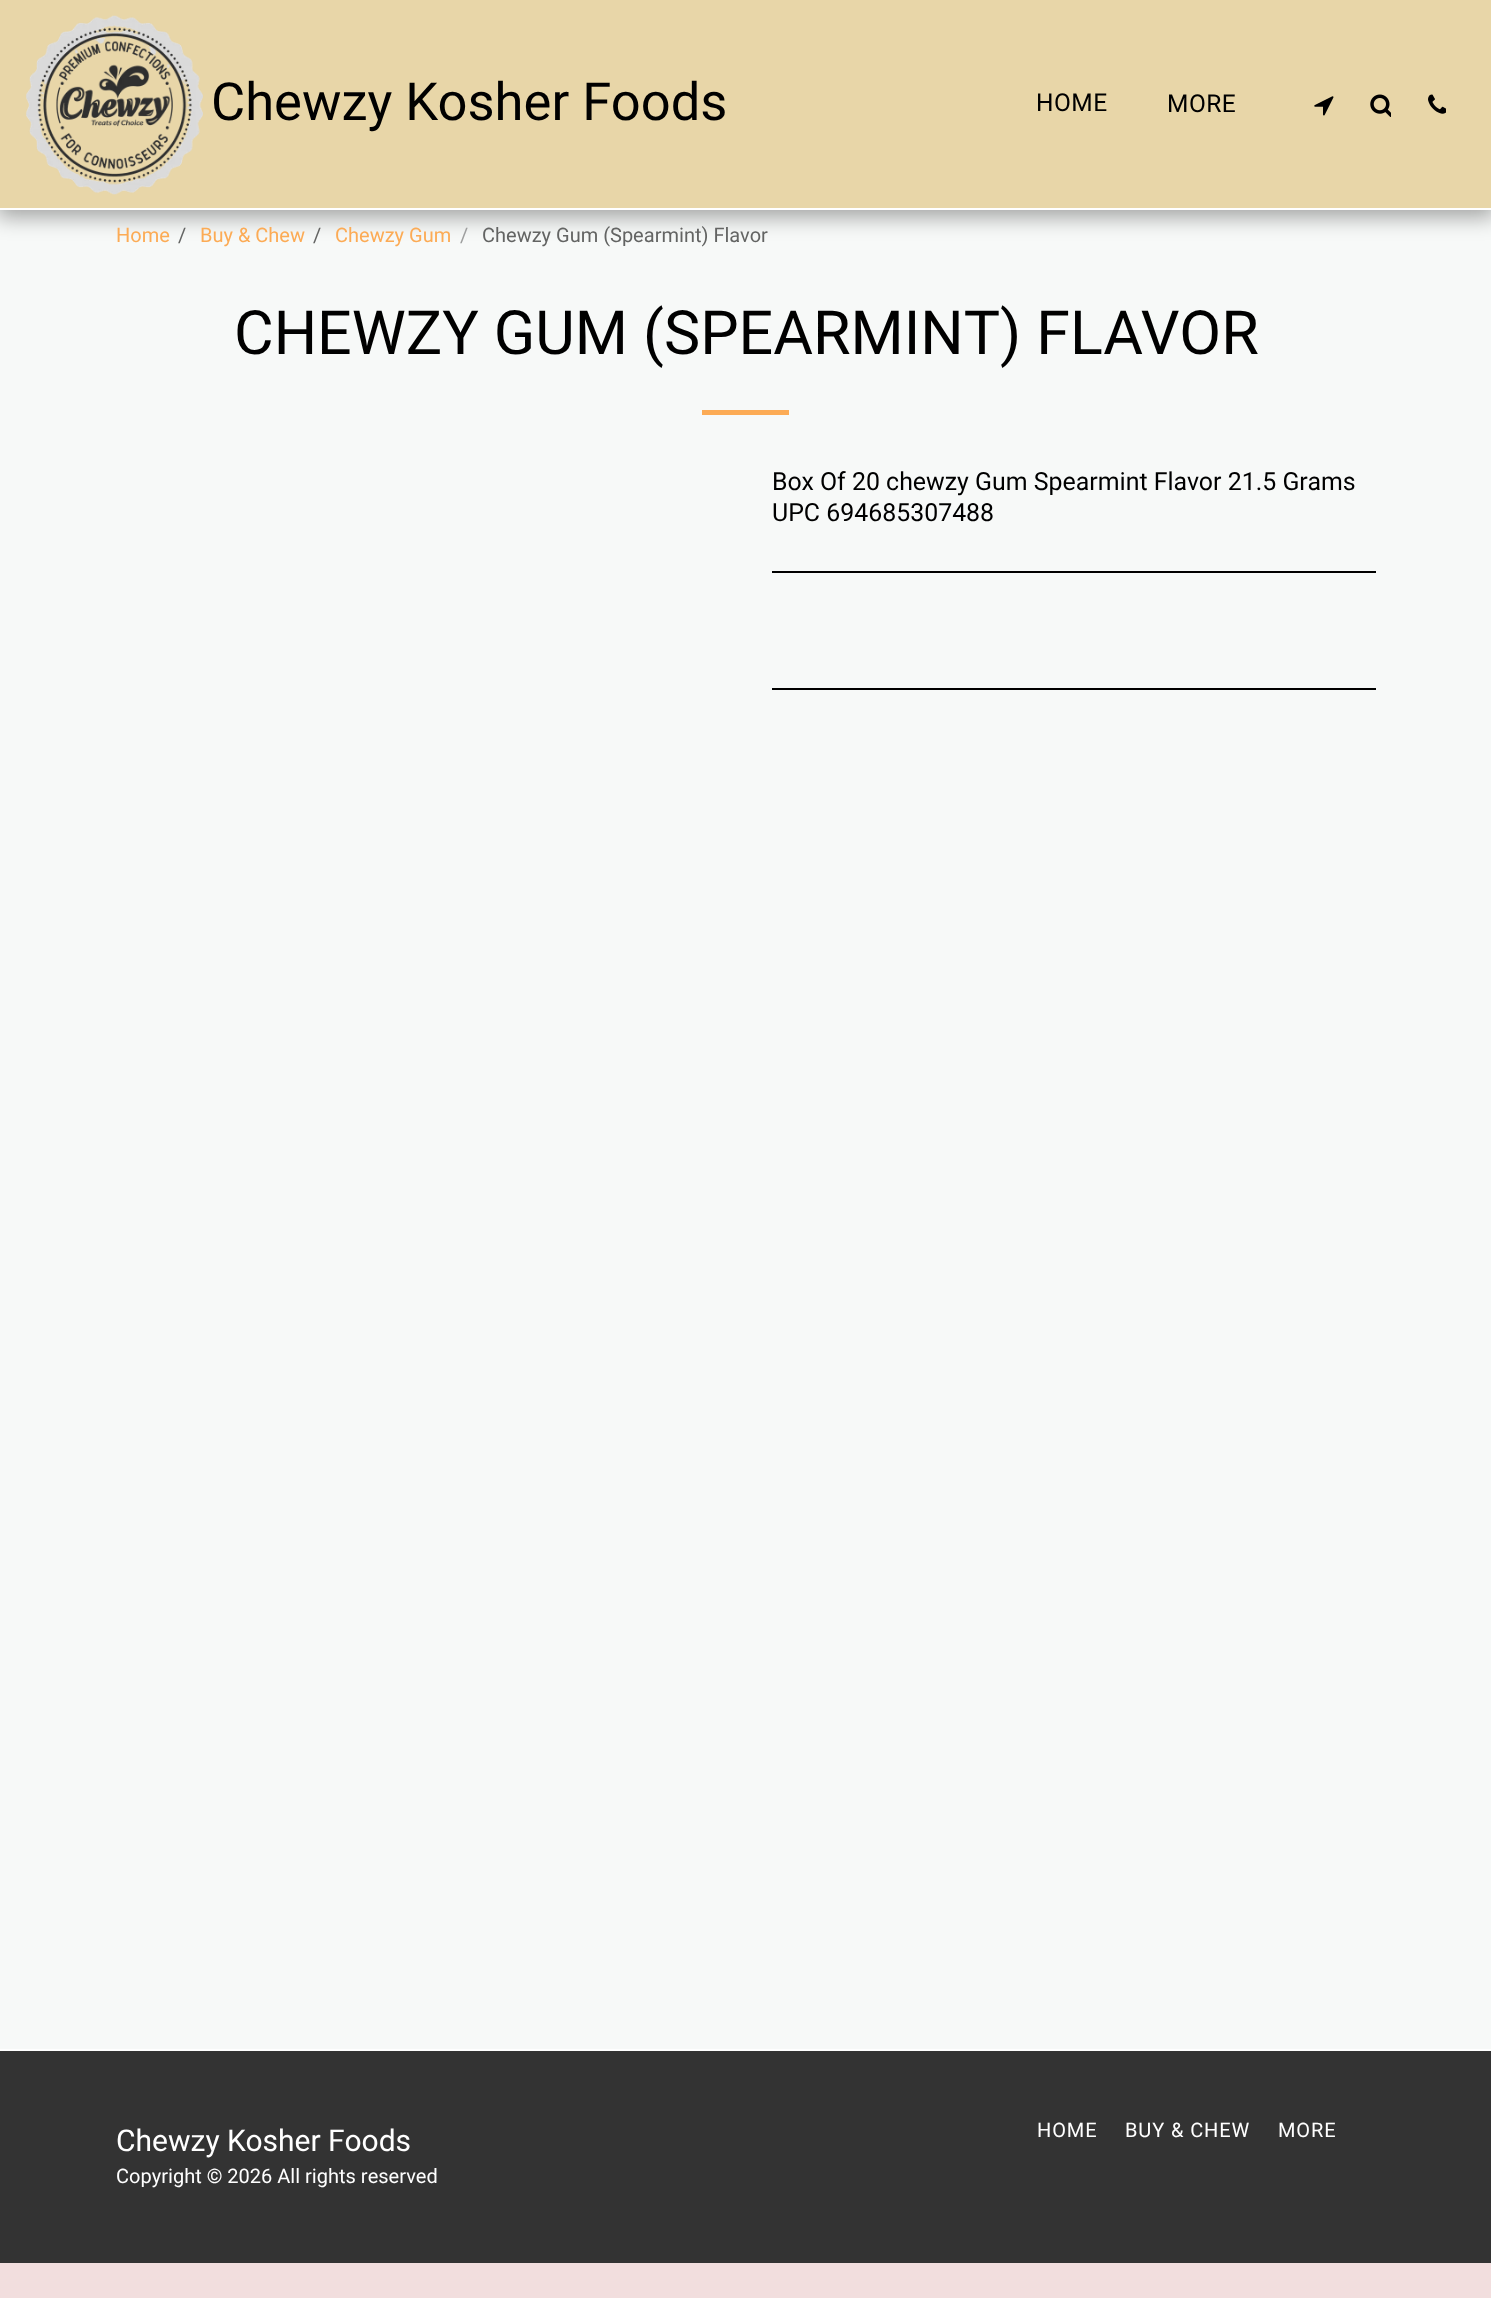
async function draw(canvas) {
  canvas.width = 1491
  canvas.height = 2298
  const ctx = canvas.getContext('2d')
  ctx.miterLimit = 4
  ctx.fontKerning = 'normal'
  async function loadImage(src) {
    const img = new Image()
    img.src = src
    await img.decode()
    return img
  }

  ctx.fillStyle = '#f2dede'
  ctx.fillRect(0, 0, 1491, 2298)
  ctx.fillStyle = '#f7f9f8'
  ctx.fillRect(0, 210, 1491, 1839)
  ctx.fillStyle = '#00000059'
  ctx.filter = 'blur(10.5px)'
  ctx.beginPath()
  ctx.rect(-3, 0, 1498, 217)
  ctx.fill()
  ctx.filter = 'none'
  ctx.fillStyle = '#e8d6a8'
  ctx.fillRect(0, 0, 1491, 208)
  ctx.fillStyle = '#fff'
  ctx.fillRect(0, 208, 1491, 2)
  ctx.drawImage(await loadImage('image0.png'), 26, 15, 177, 180)
  ctx.font = '52.5px Heebo'
  ctx.fillStyle = '#000'
  ctx.fillText('Chewzy Kosher Foods', 211, 120)
  ctx.letterSpacing = '0.5px'
  ctx.font = '24.5px Heebo'
  ctx.fillText('HOME', 1036, 111)
  ctx.fillText('MORE', 1167, 112)
  ctx.drawImage(await loadImage('image1.png'), 1314, 96, 20, 20)
  ctx.drawImage(await loadImage('image2.png'), 1370, 94, 21, 23)
  ctx.drawImage(await loadImage('image3.png'), 1428, 94, 18, 20)
  ctx.letterSpacing = '0px'
  ctx.font = '20px Heebo'
  ctx.fillStyle = '#fcab55'
  ctx.fillText('Home', 116, 242)
  ctx.fillStyle = '#636463'
  ctx.fillText('/', 178, 242)
  ctx.fillStyle = '#fcab55'
  ctx.fillText('Buy & Chew', 200, 242)
  ctx.fillStyle = '#636463'
  ctx.fillText('/', 313, 242)
  ctx.fillStyle = '#fcab55'
  ctx.fillText('Chewzy Gum', 335, 242)
  ctx.fillStyle = '#9e9f9f'
  ctx.fillText('/', 460, 242)
  ctx.fillStyle = '#636463'
  ctx.fillText('Chewzy Gum (Spearmint) Flavor', 482, 242)
  ctx.font = '60.9px Heebo'
  ctx.fillStyle = '#000'
  ctx.fillText('CHEWZY GUM (SPEARMINT) FLAVOR', 234, 354)
  ctx.fillStyle = '#fcab55'
  ctx.fillRect(702, 410, 87, 5)
  ctx.font = '24.9px Heebo'
  ctx.fillStyle = '#000'
  ctx.fillText('Box Of 20 chewzy Gum Spearmint Flavor 21.5 Grams', 772, 490)
  ctx.fillText('UPC 694685307488', 772, 521)
  ctx.fillRect(772, 571, 604, 2)
  ctx.fillRect(772, 688, 604, 2)
  ctx.fillStyle = '#333'
  ctx.fillRect(0, 2051, 1491, 212)
  ctx.fillStyle = '#fff'
  ctx.fillRect(0, 2049, 1491, 2)
  ctx.font = '30px Heebo'
  ctx.fillText('Chewzy Kosher Foods', 116, 2151)
  ctx.font = '20px Heebo'
  ctx.fillText('Copyright © 2026 All rights reserved', 116, 2183)
  ctx.letterSpacing = '0.9px'
  ctx.fillText('HOME', 1037, 2137)
  ctx.fillText('BUY & CHEW', 1125, 2137)
  ctx.fillText('MORE', 1278, 2137)
}

draw(document.querySelector('canvas'))
